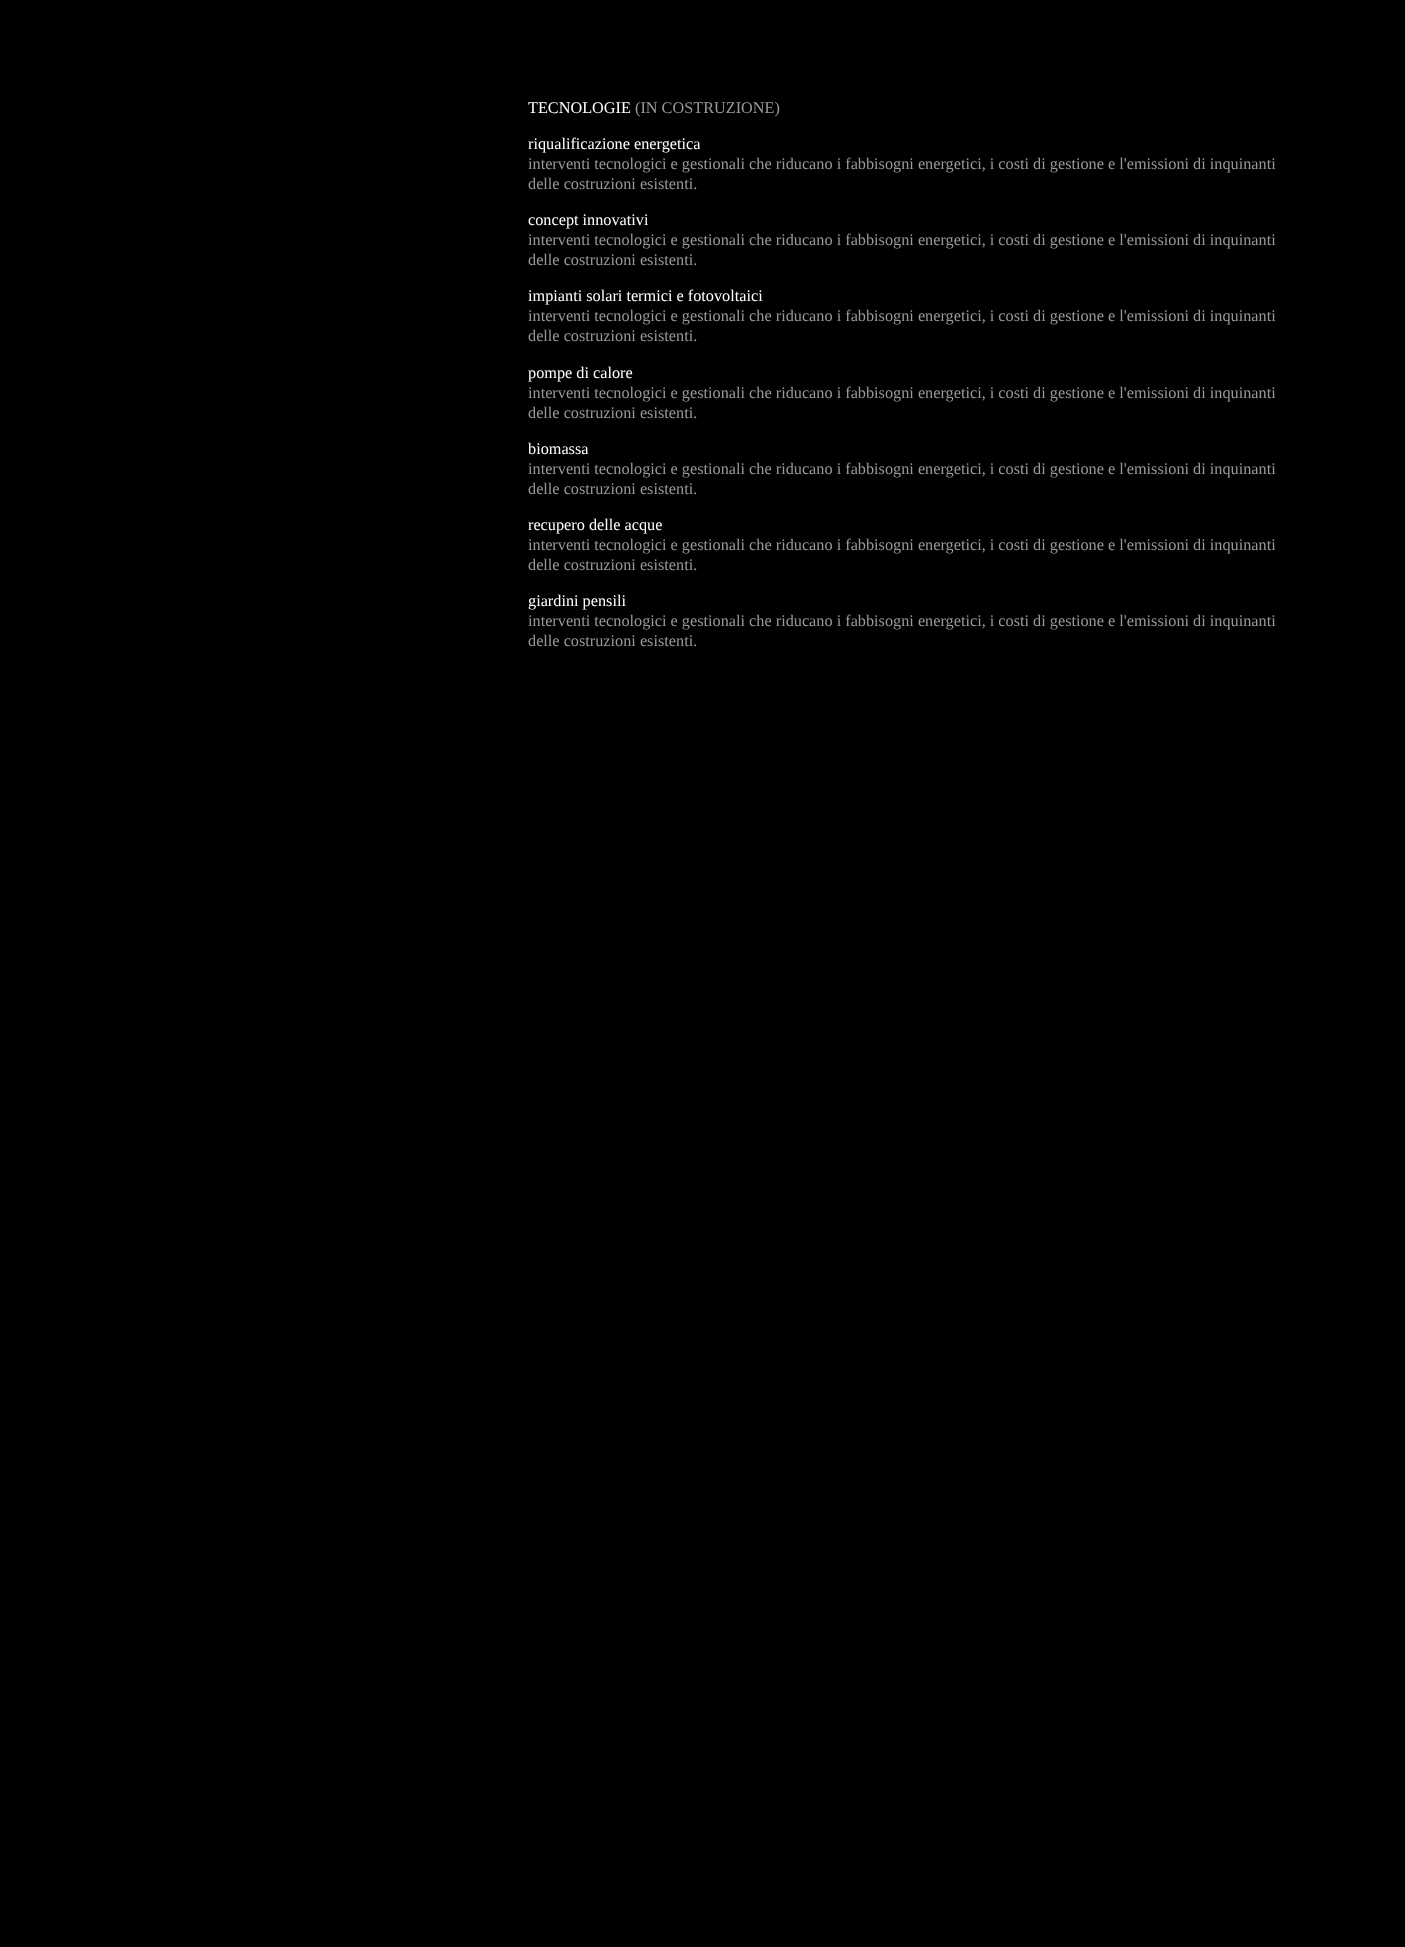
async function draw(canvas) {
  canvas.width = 1405
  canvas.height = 1947
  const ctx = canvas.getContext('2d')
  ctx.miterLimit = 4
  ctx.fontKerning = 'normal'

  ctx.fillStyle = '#000'
  ctx.fillRect(0, 0, 1405, 1947)
  ctx.font = '16.25px Liberation Serif'
  ctx.fillStyle = '#fff'
  ctx.fillText('TECNOLOGIE', 528, 113)
  ctx.fillStyle = '#999'
  ctx.fillText('(IN COSTRUZIONE)', 635, 113)
  ctx.fillStyle = '#fff'
  ctx.fillText('riqualificazione energetica', 528, 149)
  ctx.fillStyle = '#999'
  ctx.fillText('interventi tecnologici e gestionali che riducano i fabbisogni energetici, i costi di gestione e l\'emissioni di inquinanti', 528, 169)
  ctx.fillText('delle costruzioni esistenti.', 528, 189)
  ctx.fillStyle = '#fff'
  ctx.fillText('concept innovativi', 528, 225)
  ctx.fillStyle = '#999'
  ctx.fillText('interventi tecnologici e gestionali che riducano i fabbisogni energetici, i costi di gestione e l\'emissioni di inquinanti', 528, 245)
  ctx.fillText('delle costruzioni esistenti.', 528, 265)
  ctx.fillStyle = '#fff'
  ctx.fillText('impianti solari termici e fotovoltaici', 528, 301)
  ctx.fillStyle = '#999'
  ctx.fillText('interventi tecnologici e gestionali che riducano i fabbisogni energetici, i costi di gestione e l\'emissioni di inquinanti', 528, 321)
  ctx.fillText('delle costruzioni esistenti.', 528, 341)
  ctx.fillStyle = '#fff'
  ctx.fillText('pompe di calore', 528, 378)
  ctx.fillStyle = '#999'
  ctx.fillText('interventi tecnologici e gestionali che riducano i fabbisogni energetici, i costi di gestione e l\'emissioni di inquinanti', 528, 398)
  ctx.fillText('delle costruzioni esistenti.', 528, 418)
  ctx.fillStyle = '#fff'
  ctx.fillText('biomassa', 528, 454)
  ctx.fillStyle = '#999'
  ctx.fillText('interventi tecnologici e gestionali che riducano i fabbisogni energetici, i costi di gestione e l\'emissioni di inquinanti', 528, 474)
  ctx.fillText('delle costruzioni esistenti.', 528, 494)
  ctx.fillStyle = '#fff'
  ctx.fillText('recupero delle acque', 528, 530)
  ctx.fillStyle = '#999'
  ctx.fillText('interventi tecnologici e gestionali che riducano i fabbisogni energetici, i costi di gestione e l\'emissioni di inquinanti', 528, 550)
  ctx.fillText('delle costruzioni esistenti.', 528, 570)
  ctx.fillStyle = '#fff'
  ctx.fillText('giardini pensili', 528, 606)
  ctx.fillStyle = '#999'
  ctx.fillText('interventi tecnologici e gestionali che riducano i fabbisogni energetici, i costi di gestione e l\'emissioni di inquinanti', 528, 626)
  ctx.fillText('delle costruzioni esistenti.', 528, 646)
}

draw(document.querySelector('canvas'))
